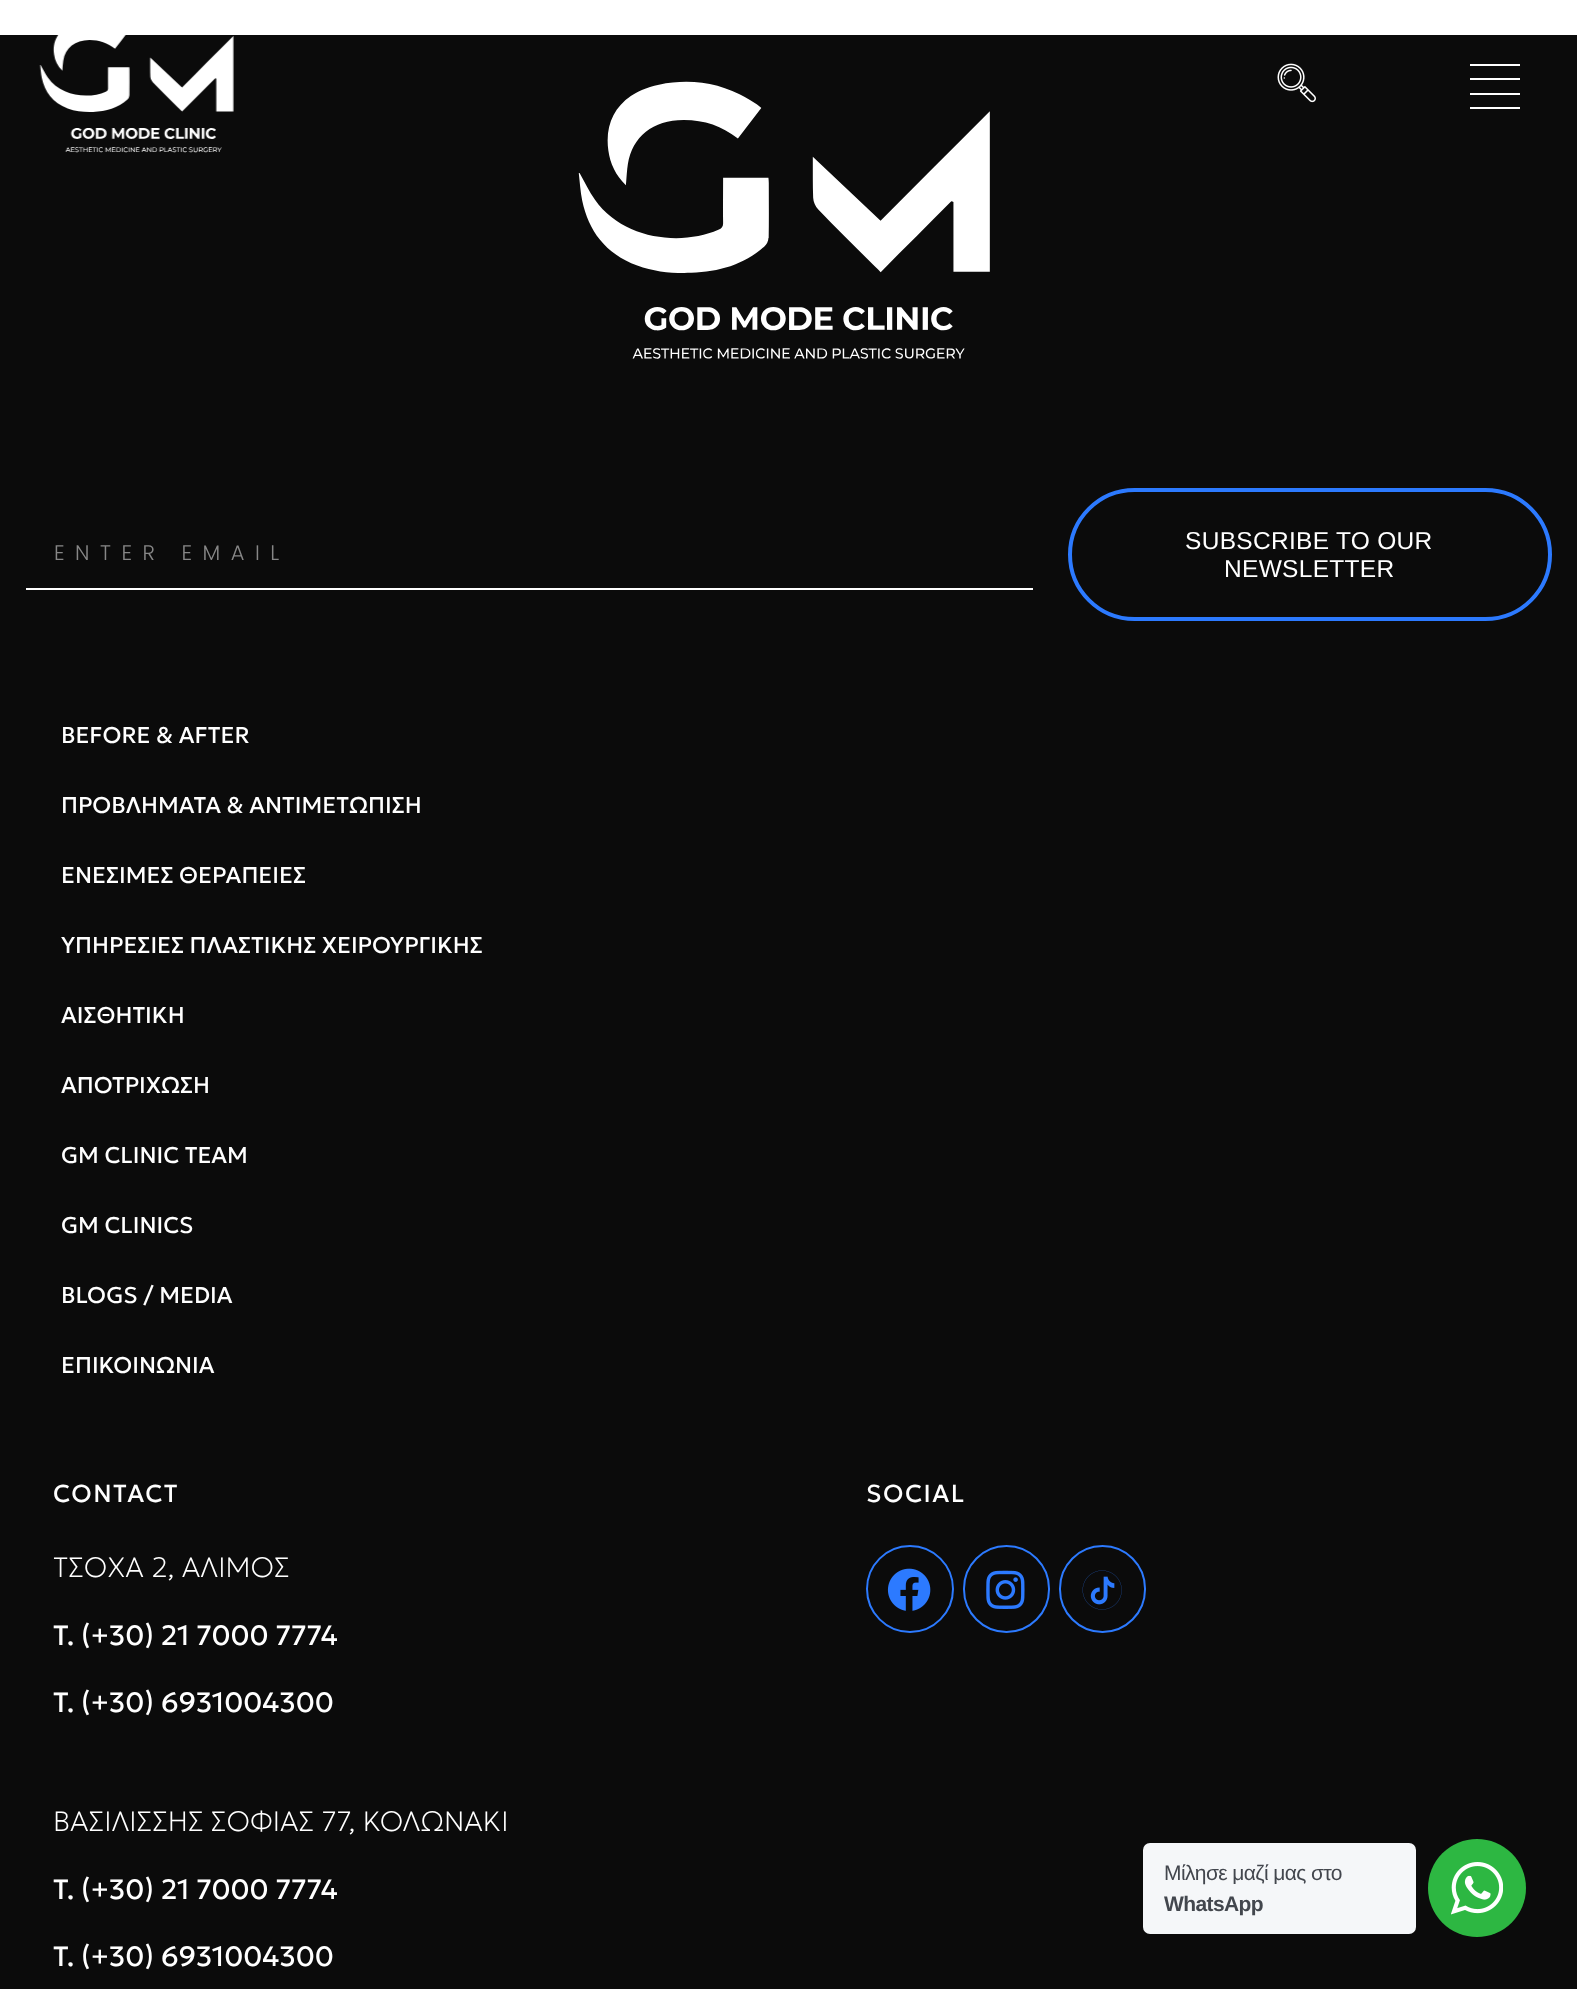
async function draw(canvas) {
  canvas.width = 1577
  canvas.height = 1989
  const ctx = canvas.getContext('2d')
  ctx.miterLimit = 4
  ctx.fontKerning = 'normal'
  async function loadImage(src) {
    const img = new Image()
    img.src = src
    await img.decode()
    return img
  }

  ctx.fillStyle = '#fff'
  ctx.fillRect(0, 0, 1577, 1989)
  ctx.fillStyle = '#0b0b0b'
  ctx.fillRect(0, 35, 1577, 1954)
  ctx.drawImage(await loadImage('image0.png'), 39, 35, 195, 118)
  ctx.drawImage(await loadImage('image1.png'), 1277, 63, 39, 40)
  ctx.fillStyle = '#fff'
  ctx.beginPath()
  ctx.moveTo(1470, 64)
  ctx.lineTo(1520, 64)
  ctx.lineTo(1520, 66)
  ctx.lineTo(1470, 66)
  ctx.closePath()
  ctx.moveTo(1470, 78)
  ctx.lineTo(1520, 78)
  ctx.lineTo(1520, 80)
  ctx.lineTo(1470, 80)
  ctx.closePath()
  ctx.moveTo(1470, 93)
  ctx.lineTo(1520, 93)
  ctx.lineTo(1520, 95)
  ctx.lineTo(1470, 95)
  ctx.closePath()
  ctx.moveTo(1470, 107)
  ctx.lineTo(1520, 107)
  ctx.lineTo(1520, 109)
  ctx.lineTo(1470, 109)
  ctx.closePath()
  ctx.fill()
  ctx.drawImage(await loadImage('image2.png'), 578, 81, 412, 278)
  ctx.fillRect(26, 588, 1007, 2)
  ctx.letterSpacing = '10.5px'
  ctx.font = '300 21px Poppins'
  ctx.fillStyle = '#878787'
  ctx.fillText('ENTER EMAIL', 54, 560)
  ctx.beginPath()
  ctx.roundRect(1070, 490, 480, 129, 64.5)
  ctx.strokeStyle = '#2c7aff'
  ctx.lineWidth = 4
  ctx.stroke()
  ctx.letterSpacing = '0.3px'
  ctx.font = '24.5px Liberation Sans'
  ctx.fillStyle = '#fff'
  ctx.fillText('SUBSCRIBE TO OUR', 1185, 549)
  ctx.fillText('NEWSLETTER', 1224, 577)
  ctx.letterSpacing = '0px'
  ctx.font = '22.75px Geologica'
  ctx.fillText('BEFORE & AFTER', 61, 743)
  ctx.fillText('ΠΡΟΒΛHΜΑΤΑ & ΑΝΤΙΜΕΤΩΠΙΣΗ', 61, 813)
  ctx.fillText('ΕΝΕΣΙΜΕΣ ΘΕΡΑΠΕΙΕΣ', 61, 883)
  ctx.fillText('ΥΠΗΡΕΣΙΕΣ ΠΛΑΣΤΙΚΗΣ ΧΕΙΡΟΥΡΓΙΚΗΣ', 61, 953)
  ctx.fillText('ΑΙΣΘΗΤΙΚΗ', 61, 1023)
  ctx.fillText('ΑΠΟΤΡΙΧΩΣΗ', 61, 1093)
  ctx.fillText('GM CLINIC TEAM', 61, 1163)
  ctx.fillText('GM CLINICS', 61, 1233)
  ctx.fillText('BLOGS / MEDIA', 61, 1303)
  ctx.fillText('ΕΠΙΚΟΙΝΩΝΙΑ', 61, 1373)
  ctx.letterSpacing = '1.5px'
  ctx.font = '24.5px Geologica'
  ctx.fillText('CONTACT', 53, 1502)
  ctx.letterSpacing = '0px'
  ctx.font = '100 28px Geologica'
  ctx.fillText('ΤΣOΧΑ 2, AΛΙΜΟΣ', 53, 1577)
  ctx.font = '28px Geologica'
  ctx.fillText('Τ. (+30) 21 7000 7774', 53, 1645)
  ctx.fillText('Τ. (+30) 6931004300', 53, 1712)
  ctx.font = '100 28px Geologica'
  ctx.fillText('ΒΑΣΙΛIΣΣΗΣ ΣΟΦIΑΣ 77, ΚΟΛΩΝAΚΙ', 53, 1831)
  ctx.font = '28px Geologica'
  ctx.fillText('Τ. (+30) 21 7000 7774', 53, 1899)
  ctx.fillText('Τ. (+30) 6931004300', 53, 1966)
  ctx.letterSpacing = '1.5px'
  ctx.font = '24.5px Geologica'
  ctx.fillText('SOCIAL', 866, 1502)
  ctx.beginPath()
  ctx.arc(910, 1589, 43, 0, 2 * Math.PI)
  ctx.lineWidth = 2
  ctx.stroke()
  ctx.drawImage(await loadImage('image3.png'), 887, 1568, 44, 43)
  ctx.beginPath()
  ctx.roundRect(964, 1546, 85, 86, 42.5)
  ctx.stroke()
  ctx.drawImage(await loadImage('image4.png'), 986, 1570, 39, 39)
  ctx.beginPath()
  ctx.roundRect(1060, 1546, 85, 86, 42.5)
  ctx.stroke()
  ctx.drawImage(await loadImage('image5.png'), 1082, 1570, 40, 40)
  ctx.fillStyle = '#f5f7f9'
  ctx.beginPath()
  ctx.roundRect(1143, 1843, 273, 91, 7)
  ctx.fill()
  ctx.letterSpacing = '-0.6px'
  ctx.font = '21px Liberation Sans'
  ctx.fillStyle = '#43474e'
  ctx.fillText('Μίλησε μαζί μας στο', 1164, 1880)
  ctx.font = 'bold 21px Liberation Sans'
  ctx.fillText('WhatsApp', 1164, 1911)
  ctx.fillStyle = '#2db742'
  ctx.beginPath()
  ctx.arc(1477, 1888, 49, 0, 2 * Math.PI)
  ctx.fill()
  ctx.drawImage(await loadImage('image6.png'), 1451, 1862, 52, 53)
}

draw(document.querySelector('canvas'))
